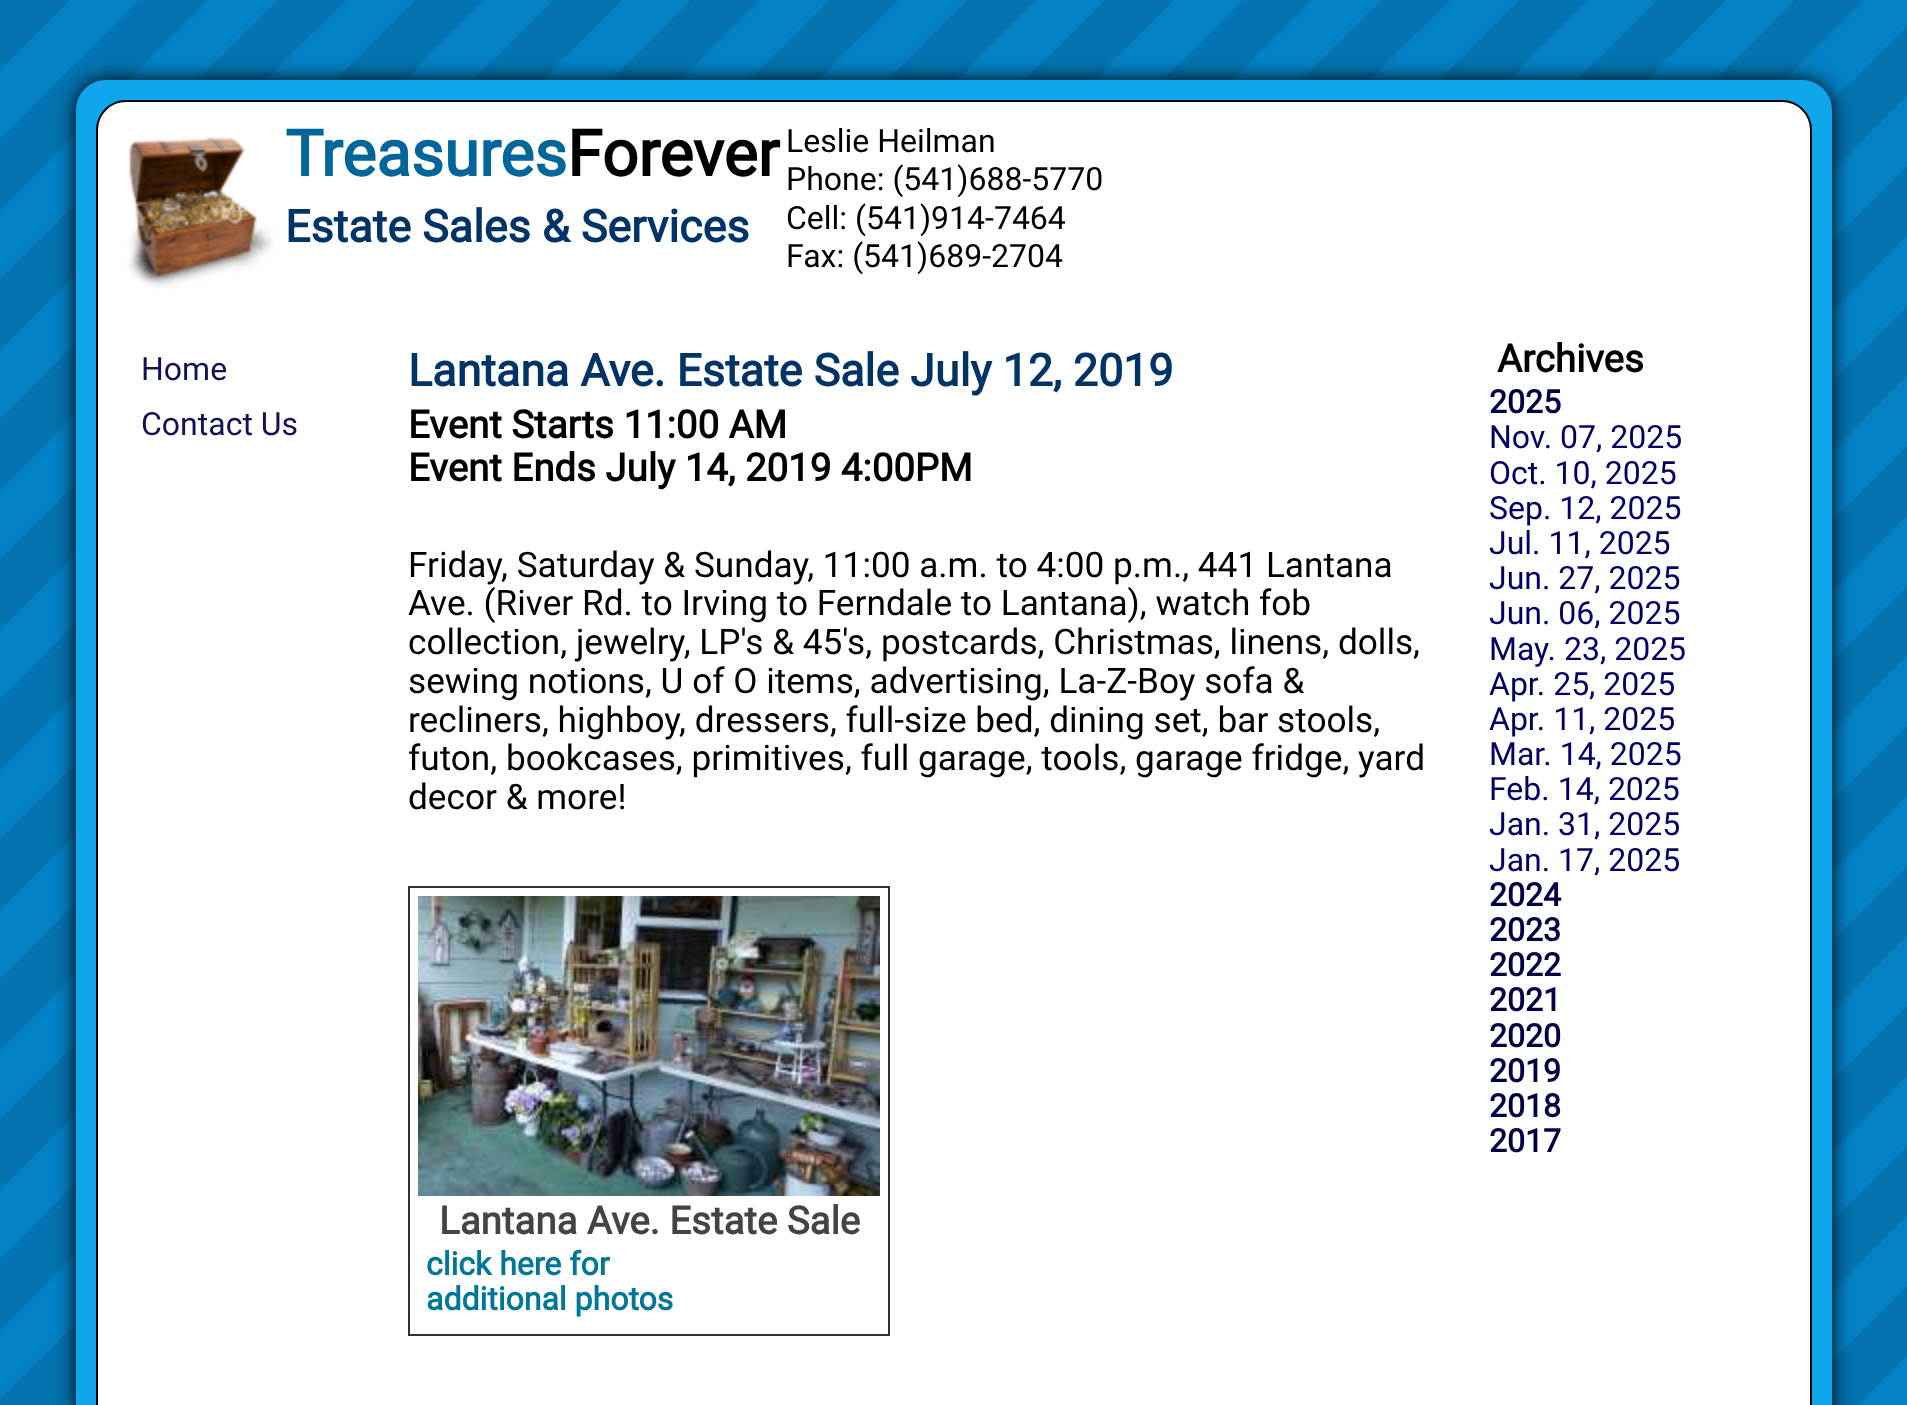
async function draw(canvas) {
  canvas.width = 1907
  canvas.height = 1405
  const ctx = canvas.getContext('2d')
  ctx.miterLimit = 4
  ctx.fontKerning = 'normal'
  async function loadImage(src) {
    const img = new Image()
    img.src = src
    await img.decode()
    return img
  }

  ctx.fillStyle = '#fff'
  ctx.fillRect(0, 0, 1907, 1405)
  ctx.drawImage(await loadImage('image0.png'), 0, 0, 1907, 1405)
  ctx.fillStyle = '#000'
  ctx.filter = 'blur(10px)'
  ctx.beginPath()
  ctx.roundRect(76, 80, 1756, 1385, 30)
  ctx.fill()
  ctx.filter = 'none'
  ctx.fillStyle = '#10a6eb'
  ctx.beginPath()
  ctx.roundRect(76, 80, 1756, 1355, 30)
  ctx.fill()
  ctx.fillStyle = '#fff'
  ctx.beginPath()
  ctx.roundRect(97, 101, 1714, 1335, 29)
  ctx.fill()
  ctx.strokeStyle = '#000'
  ctx.lineWidth = 2
  ctx.stroke()
  ctx.drawImage(await loadImage('image1.png'), 127, 137, 147, 152)
  ctx.font = 'bold 64px Roboto'
  ctx.fillStyle = '#069'
  ctx.fillText('Treasures', 285, 176)
  ctx.fillStyle = '#000'
  ctx.fillText('Forever', 567, 176)
  ctx.font = 'bold 44.75px Roboto'
  ctx.fillStyle = '#036'
  ctx.fillText('Estate Sales & Services', 285, 242)
  ctx.font = '32px Roboto'
  ctx.fillStyle = '#000'
  ctx.fillText('Leslie Heilman', 786, 152)
  ctx.fillText('Phone: (541)688-5770', 786, 190)
  ctx.fillText('Cell: (541)914-7464', 786, 229)
  ctx.fillText('Fax: (541)689-2704', 786, 267)
  ctx.fillStyle = '#115'
  ctx.fillText('Home', 141, 380)
  ctx.fillText('Contact Us', 141, 435)
  ctx.font = 'bold 44.75px Roboto'
  ctx.fillStyle = '#036'
  ctx.fillText('Lantana Ave. Estate Sale July 12, 2019', 408, 386)
  ctx.font = 'bold 38.4px Roboto'
  ctx.fillStyle = '#000'
  ctx.fillText('Event Starts 11:00 AM', 408, 438)
  ctx.fillText('Event Ends July 14, 2019 4:00PM', 408, 481)
  ctx.font = '35.2px Roboto'
  ctx.fillText('Friday, Saturday & Sunday, 11:00 a.m. to 4:00 p.m., 441 Lantana', 408, 577)
  ctx.fillText('Ave. (River Rd. to Irving to Ferndale to Lantana), watch fob', 408, 615)
  ctx.fillText('collection, jewelry, LP\'s & 45\'s, postcards, Christmas, linens, dolls,', 408, 654)
  ctx.fillText('sewing notions, U of O items, advertising, La-Z-Boy sofa &', 408, 693)
  ctx.fillText('recliners, highboy, dressers, full-size bed, dining set, bar stools,', 408, 732)
  ctx.fillText('futon, bookcases, primitives, full garage, tools, garage fridge, yard', 408, 770)
  ctx.fillText('decor & more!', 408, 809)
  ctx.strokeStyle = '#333'
  ctx.strokeRect(409, 887, 480, 448)
  ctx.drawImage(await loadImage('image2.png'), 418, 896, 462, 300)
  ctx.font = 'bold 38.4px Roboto'
  ctx.fillStyle = '#444'
  ctx.fillText('Lantana Ave. Estate Sale', 439, 1234)
  ctx.font = 'bold 32px Roboto'
  ctx.fillStyle = '#079'
  ctx.fillText('click here for', 426, 1275)
  ctx.fillText('additional photos', 426, 1310)
  ctx.font = 'bold 38.4px Roboto'
  ctx.fillStyle = '#000'
  ctx.fillText('Archives', 1497, 372)
  ctx.font = 'bold 32px Roboto'
  ctx.fillStyle = '#004'
  ctx.fillText('2025', 1489, 413)
  ctx.font = '32px Roboto'
  ctx.fillStyle = '#006'
  ctx.fillText('Nov. 07, 2025', 1489, 448)
  ctx.fillText('Oct. 10, 2025', 1489, 484)
  ctx.fillText('Sep. 12, 2025', 1489, 519)
  ctx.fillText('Jul. 11, 2025', 1489, 554)
  ctx.fillText('Jun. 27, 2025', 1489, 589)
  ctx.fillText('Jun. 06, 2025', 1489, 624)
  ctx.fillText('May. 23, 2025', 1489, 660)
  ctx.fillText('Apr. 25, 2025', 1489, 695)
  ctx.fillText('Apr. 11, 2025', 1489, 730)
  ctx.fillText('Mar. 14, 2025', 1489, 765)
  ctx.fillText('Feb. 14, 2025', 1489, 800)
  ctx.fillText('Jan. 31, 2025', 1489, 835)
  ctx.fillText('Jan. 17, 2025', 1489, 871)
  ctx.font = 'bold 32px Roboto'
  ctx.fillStyle = '#004'
  ctx.fillText('2024', 1489, 906)
  ctx.fillText('2023', 1489, 941)
  ctx.fillText('2022', 1489, 976)
  ctx.fillText('2021', 1489, 1011)
  ctx.fillText('2020', 1489, 1047)
  ctx.fillText('2019', 1489, 1082)
  ctx.fillText('2018', 1489, 1117)
  ctx.fillText('2017', 1489, 1152)
}

draw(document.querySelector('canvas'))
